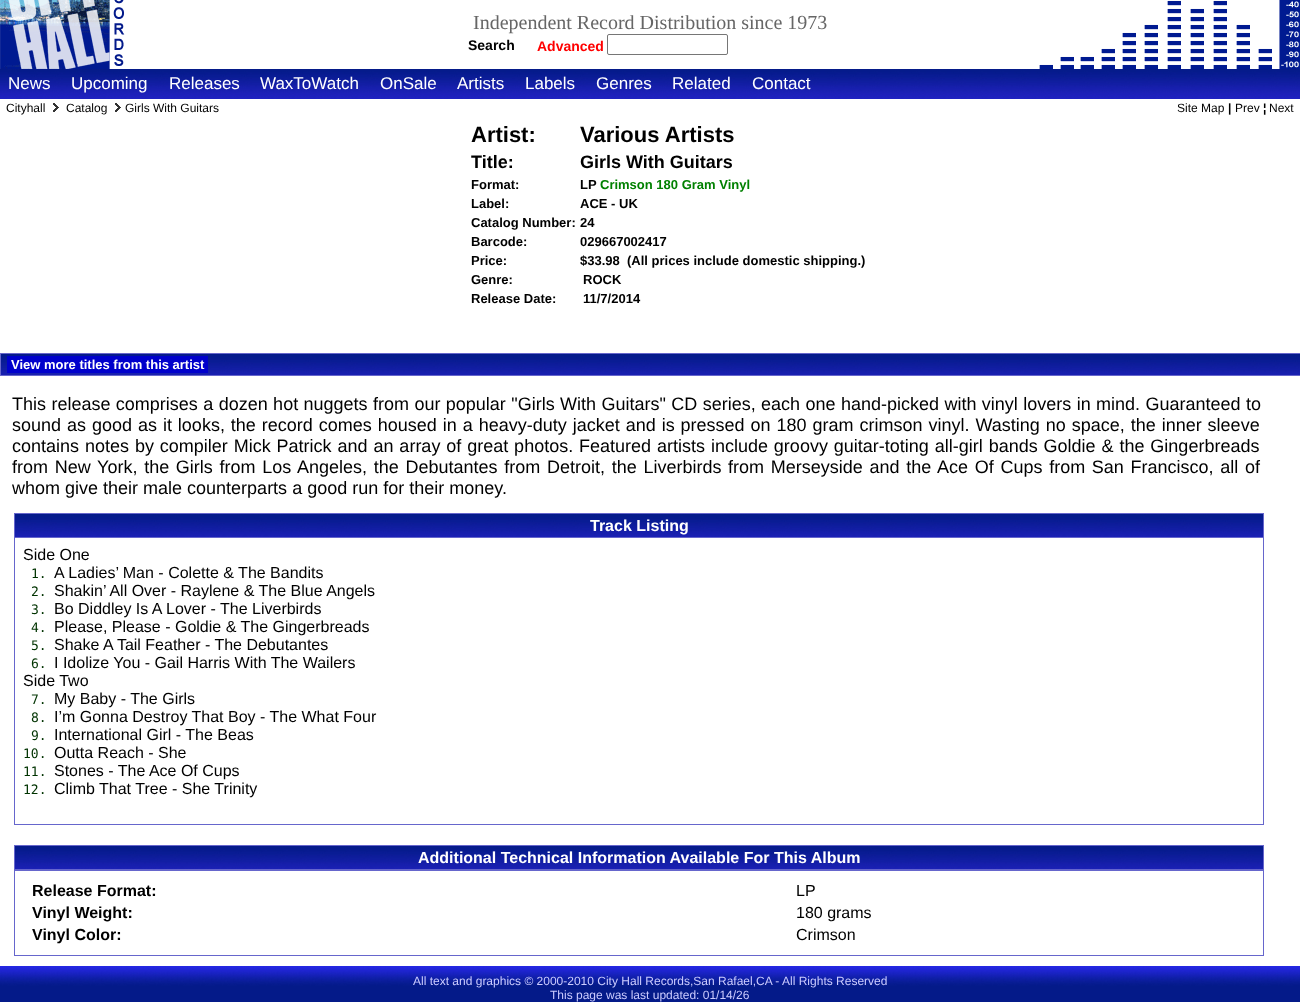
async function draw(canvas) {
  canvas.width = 1300
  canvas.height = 1002
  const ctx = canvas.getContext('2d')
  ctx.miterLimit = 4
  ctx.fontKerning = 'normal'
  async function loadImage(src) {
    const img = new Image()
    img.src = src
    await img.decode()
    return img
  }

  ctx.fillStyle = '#fff'
  ctx.fillRect(0, 0, 1300, 1002)
  ctx.drawImage(await loadImage('image0.png'), 1039, 0, 261, 69)
  ctx.drawImage(await loadImage('image1.png'), 0, 0, 125, 69)
  ctx.font = '20px Liberation Serif'
  ctx.fillStyle = '#666'
  ctx.fillText('Independent Record Distribution since 1973', 473, 29)
  ctx.font = 'bold 14px Liberation Sans'
  ctx.fillStyle = '#000'
  ctx.fillText('Search', 468, 50)
  ctx.fillStyle = '#f00'
  ctx.fillText('Advanced', 537, 51)
  ctx.beginPath()
  ctx.roundRect(607.5, 34.5, 120, 20, 1.5)
  ctx.strokeStyle = '#767676'
  ctx.stroke()
  ctx.drawImage(await loadImage('image2.png'), 0, 69, 1300, 30)
  ctx.font = '17px Liberation Sans'
  ctx.fillStyle = '#fff'
  ctx.fillText('News', 8, 89)
  ctx.fillText('Upcoming', 71, 89)
  ctx.fillText('Releases', 169, 89)
  ctx.fillText('WaxToWatch', 260, 89)
  ctx.fillText('OnSale', 380, 89)
  ctx.fillText('Artists', 457, 89)
  ctx.fillText('Labels', 525, 89)
  ctx.fillText('Genres', 596, 89)
  ctx.fillText('Related', 672, 89)
  ctx.fillText('Contact', 752, 89)
  ctx.font = '12px Liberation Sans'
  ctx.fillStyle = '#000'
  ctx.fillText('Cityhall', 6, 112)
  ctx.drawImage(await loadImage('image3.png'), 53, 103, 6, 9)
  ctx.fillText('Catalog', 66, 112)
  ctx.drawImage(await loadImage('image3.png'), 115, 103, 6, 9)
  ctx.fillText('Girls With Guitars', 125, 112)
  ctx.fillText('Site Map', 1177, 112)
  ctx.font = 'bold 12px Liberation Sans'
  ctx.fillText('|', 1228, 112)
  ctx.font = '12px Liberation Sans'
  ctx.fillText('Prev', 1235, 112)
  ctx.font = 'bold 12px Liberation Sans'
  ctx.fillText('¦', 1263, 112)
  ctx.font = '12px Liberation Sans'
  ctx.fillText('Next', 1269, 112)
  ctx.font = 'bold 22px Liberation Sans'
  ctx.fillText('Artist:', 471, 142)
  ctx.fillText('Various Artists', 580, 142)
  ctx.font = 'bold 18px Liberation Sans'
  ctx.fillText('Title:', 471, 168)
  ctx.fillText('Girls With Guitars', 580, 168)
  ctx.font = 'bold 13px Liberation Sans'
  ctx.fillText('Format:', 471, 189)
  ctx.fillText('LP', 580, 189)
  ctx.fillStyle = '#008000'
  ctx.fillText('Crimson 180 Gram Vinyl', 600, 189)
  ctx.fillStyle = '#000'
  ctx.fillText('Label:', 471, 208)
  ctx.fillText('ACE - UK', 580, 208)
  ctx.fillText('Catalog Number:', 471, 227)
  ctx.fillText('24', 580, 227)
  ctx.fillText('Barcode:', 471, 246)
  ctx.fillText('029667002417', 580, 246)
  ctx.fillText('Price:', 471, 265)
  ctx.fillText('$33.98', 580, 265)
  ctx.fillText('(All prices include domestic shipping.)', 627, 265)
  ctx.fillText('Genre:', 471, 284)
  ctx.fillText('ROCK', 583, 284)
  ctx.fillText('Release Date:', 471, 303)
  ctx.fillText('11/7/2014', 583, 303)
  ctx.drawImage(await loadImage('image4.png'), 1, 354, 1299, 21)
  ctx.strokeStyle = '#66c'
  ctx.strokeRect(0.5, 353.5, 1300, 22)
  ctx.fillStyle = '#00c'
  ctx.fillRect(7, 356, 201, 17)
  ctx.fillStyle = '#fff'
  ctx.fillText('View more titles from this artist', 11, 369)
  ctx.wordSpacing = '0.4px'
  ctx.font = '18px Liberation Sans'
  ctx.fillStyle = '#000'
  ctx.fillText('This release comprises a dozen hot nuggets from our popular "Girls With Guitars" CD series, each one hand-picked with vinyl lovers in mind. Guaranteed to', 12, 410)
  ctx.wordSpacing = '0.95px'
  ctx.fillText('sound as good as it looks, the record comes housed in a heavy-duty jacket and is pressed on 180 gram crimson vinyl. Wasting no space, the inner sleeve', 12, 431)
  ctx.wordSpacing = '0.9px'
  ctx.fillText('contains notes by compiler Mick Patrick and an array of great photos. Featured artists include groovy guitar-toting all-girl bands Goldie & the Gingerbreads', 12, 452)
  ctx.wordSpacing = '1.7px'
  ctx.fillText('from New York, the Girls from Los Angeles, the Debutantes from Detroit, the Liverbirds from Merseyside and the Ace Of Cups from San Francisco, all of', 12, 473)
  ctx.wordSpacing = '0px'
  ctx.fillText('whom give their male counterparts a good run for their money.', 12, 494)
  ctx.drawImage(await loadImage('image5.png'), 15, 514, 1248, 23)
  ctx.fillStyle = '#66c'
  ctx.fillRect(14, 513, 1250, 1)
  ctx.fillRect(1263, 513, 1, 24)
  ctx.fillRect(14, 513, 1, 24)
  ctx.font = 'bold 16px Liberation Sans'
  ctx.fillStyle = '#fff'
  ctx.fillText('Track Listing', 590, 531)
  ctx.strokeRect(14.5, 537.5, 1249, 287)
  ctx.font = '16px Liberation Sans'
  ctx.fillStyle = '#000'
  ctx.fillText('Side One', 23, 560)
  ctx.font = '13px DejaVu Sans Mono'
  ctx.fillStyle = '#030'
  ctx.fillText('1.', 31, 578)
  ctx.font = '16px Liberation Sans'
  ctx.fillStyle = '#000'
  ctx.fillText('A Ladies’ Man - Colette & The Bandits', 54, 578)
  ctx.font = '13px DejaVu Sans Mono'
  ctx.fillStyle = '#030'
  ctx.fillText('2.', 31, 596)
  ctx.font = '16px Liberation Sans'
  ctx.fillStyle = '#000'
  ctx.fillText('Shakin’ All Over - Raylene & The Blue Angels', 54, 596)
  ctx.font = '13px DejaVu Sans Mono'
  ctx.fillStyle = '#030'
  ctx.fillText('3.', 31, 614)
  ctx.font = '16px Liberation Sans'
  ctx.fillStyle = '#000'
  ctx.fillText('Bo Diddley Is A Lover - The Liverbirds', 54, 614)
  ctx.font = '13px DejaVu Sans Mono'
  ctx.fillStyle = '#030'
  ctx.fillText('4.', 31, 632)
  ctx.font = '16px Liberation Sans'
  ctx.fillStyle = '#000'
  ctx.fillText('Please, Please - Goldie & The Gingerbreads', 54, 632)
  ctx.font = '13px DejaVu Sans Mono'
  ctx.fillStyle = '#030'
  ctx.fillText('5.', 31, 650)
  ctx.font = '16px Liberation Sans'
  ctx.fillStyle = '#000'
  ctx.fillText('Shake A Tail Feather - The Debutantes', 54, 650)
  ctx.font = '13px DejaVu Sans Mono'
  ctx.fillStyle = '#030'
  ctx.fillText('6.', 31, 668)
  ctx.font = '16px Liberation Sans'
  ctx.fillStyle = '#000'
  ctx.fillText('I Idolize You - Gail Harris With The Wailers', 54, 668)
  ctx.fillText('Side Two', 23, 686)
  ctx.font = '13px DejaVu Sans Mono'
  ctx.fillStyle = '#030'
  ctx.fillText('7.', 31, 704)
  ctx.font = '16px Liberation Sans'
  ctx.fillStyle = '#000'
  ctx.fillText('My Baby - The Girls', 54, 704)
  ctx.font = '13px DejaVu Sans Mono'
  ctx.fillStyle = '#030'
  ctx.fillText('8.', 31, 722)
  ctx.font = '16px Liberation Sans'
  ctx.fillStyle = '#000'
  ctx.fillText('I’m Gonna Destroy That Boy - The What Four', 54, 722)
  ctx.font = '13px DejaVu Sans Mono'
  ctx.fillStyle = '#030'
  ctx.fillText('9.', 31, 740)
  ctx.font = '16px Liberation Sans'
  ctx.fillStyle = '#000'
  ctx.fillText('International Girl - The Beas', 54, 740)
  ctx.font = '13px DejaVu Sans Mono'
  ctx.fillStyle = '#030'
  ctx.fillText('10.', 23, 758)
  ctx.font = '16px Liberation Sans'
  ctx.fillStyle = '#000'
  ctx.fillText('Outta Reach - She', 54, 758)
  ctx.font = '13px DejaVu Sans Mono'
  ctx.fillStyle = '#030'
  ctx.fillText('11.', 23, 776)
  ctx.font = '16px Liberation Sans'
  ctx.fillStyle = '#000'
  ctx.fillText('Stones - The Ace Of Cups', 54, 776)
  ctx.font = '13px DejaVu Sans Mono'
  ctx.fillStyle = '#030'
  ctx.fillText('12.', 23, 794)
  ctx.font = '16px Liberation Sans'
  ctx.fillStyle = '#000'
  ctx.fillText('Climb That Tree - She Trinity', 54, 794)
  ctx.drawImage(await loadImage('image5.png'), 15, 846, 1248, 23)
  ctx.strokeRect(14.5, 845.5, 1249, 24)
  ctx.font = 'bold 16px Liberation Sans'
  ctx.fillStyle = '#fff'
  ctx.fillText('Additional Technical Information Available For This Album', 418, 863)
  ctx.strokeRect(14.5, 870.5, 1249, 85)
  ctx.fillStyle = '#000'
  ctx.fillText('Release Format:', 32, 896)
  ctx.font = '16px Liberation Sans'
  ctx.fillText('LP', 796, 896)
  ctx.font = 'bold 16px Liberation Sans'
  ctx.fillText('Vinyl Weight:', 32, 918)
  ctx.font = '16px Liberation Sans'
  ctx.fillText('180 grams', 796, 918)
  ctx.font = 'bold 16px Liberation Sans'
  ctx.fillText('Vinyl Color:', 32, 940)
  ctx.font = '16px Liberation Sans'
  ctx.fillText('Crimson', 796, 940)
  ctx.drawImage(await loadImage('image6.png'), 0, 966, 1300, 36)
  ctx.font = '12px Liberation Sans'
  ctx.fillStyle = '#ccf'
  ctx.fillText('All text and graphics © 2000-2010 City Hall Records,San Rafael,CA - All Rights Reserved', 413, 985)
  ctx.fillText('This page was last updated: 01/14/26', 550, 999)
}

draw(document.querySelector('canvas'))
